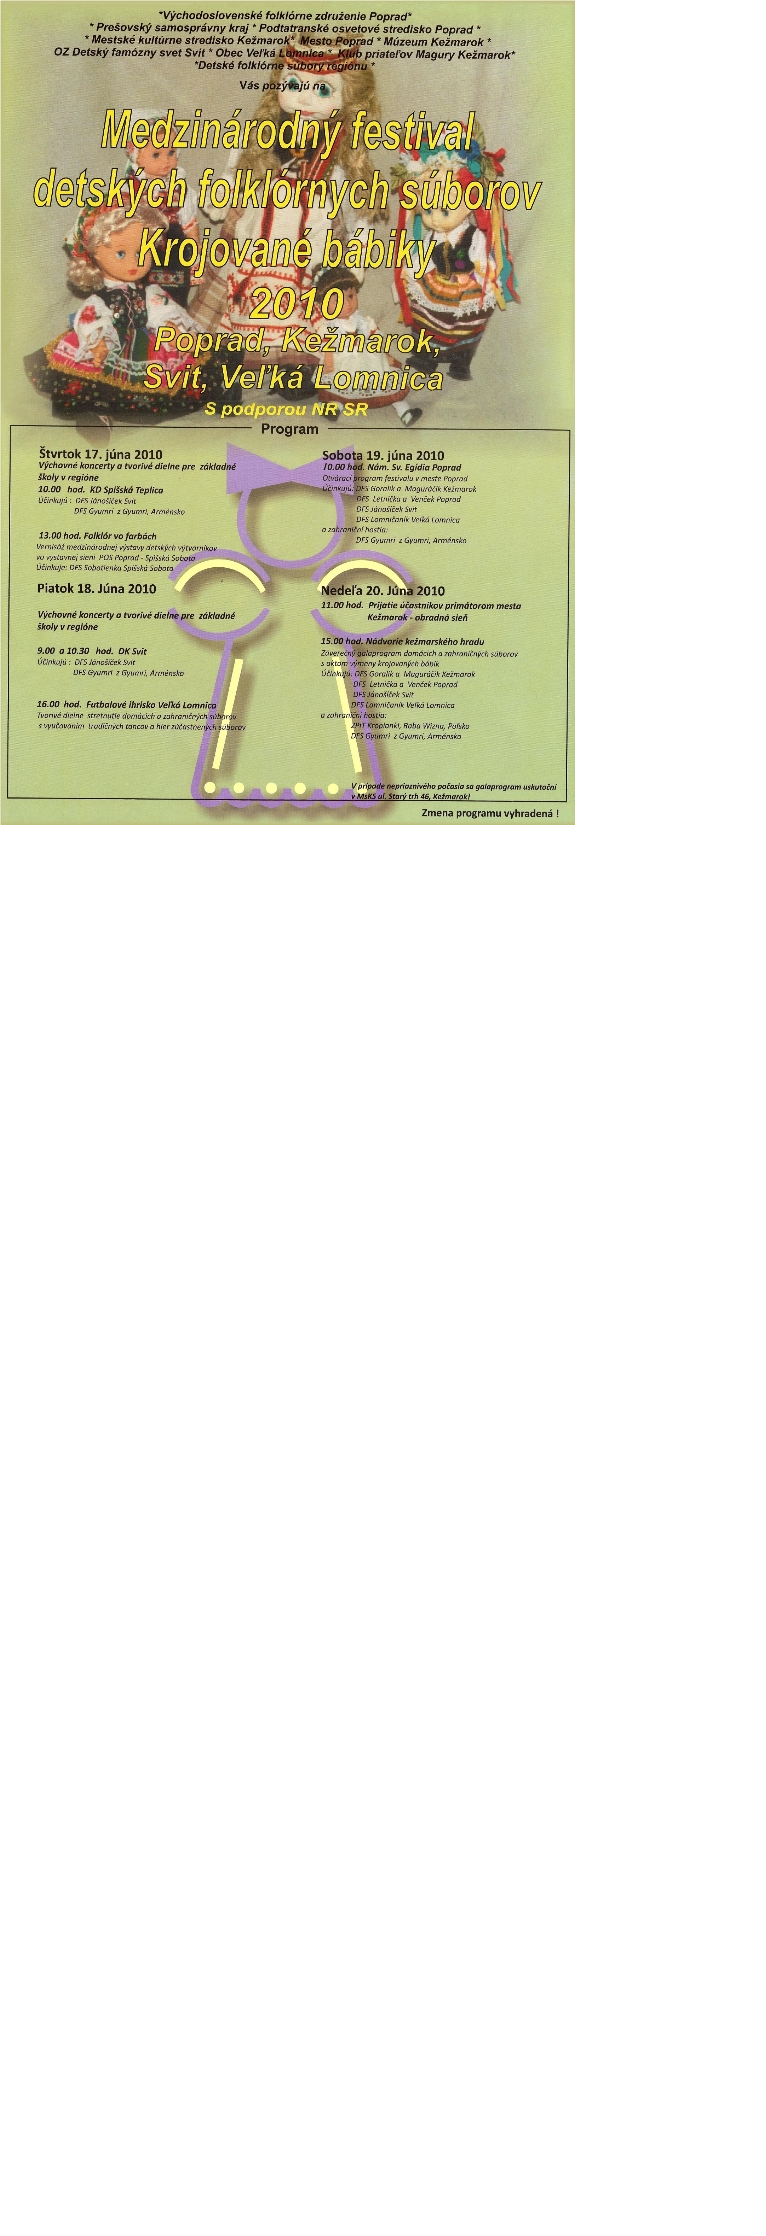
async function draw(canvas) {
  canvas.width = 766
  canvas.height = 2236
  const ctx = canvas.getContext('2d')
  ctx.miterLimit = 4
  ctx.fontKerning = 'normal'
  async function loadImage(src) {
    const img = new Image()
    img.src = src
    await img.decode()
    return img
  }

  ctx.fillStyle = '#fff'
  ctx.fillRect(0, 0, 766, 2236)
  ctx.drawImage(await loadImage('image0.png'), 0, 0, 575, 825)
}

draw(document.querySelector('canvas'))
